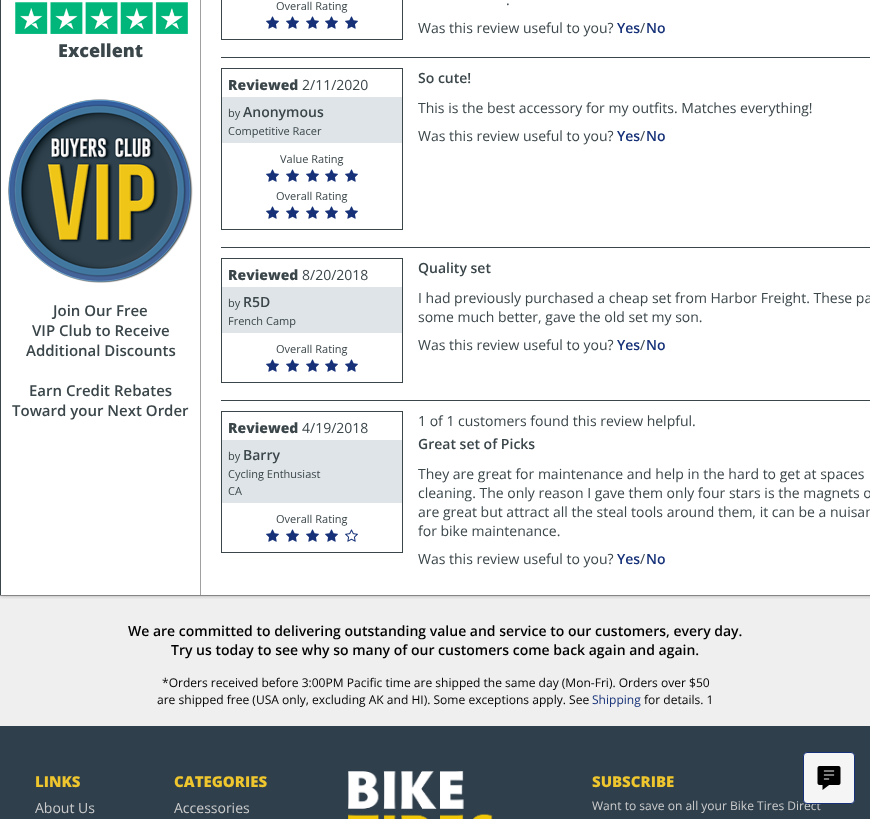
async function draw(canvas) {
  canvas.width = 870
  canvas.height = 819
  const ctx = canvas.getContext('2d')
  ctx.miterLimit = 4
  ctx.fontKerning = 'normal'
  async function loadImage(src) {
    const img = new Image()
    img.src = src
    await img.decode()
    return img
  }

  ctx.fillStyle = '#fff'
  ctx.fillRect(0, 0, 870, 819)
  ctx.fillStyle = '#efefef'
  ctx.fillRect(0, 596, 870, 130)
  ctx.fillStyle = '#a0a0a0'
  ctx.fillRect(0, 595, 870, 1)
  ctx.save()
  ctx.beginPath()
  ctx.rect(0, 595, 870, 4)
  ctx.clip()
  ctx.fillStyle = '#00000066'
  ctx.filter = 'blur(2.5px)'
  ctx.beginPath()
  ctx.rect(0, -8, 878, 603)
  ctx.fill()
  ctx.filter = 'none'
  ctx.restore()
  ctx.fillStyle = '#3b464a'
  ctx.fillRect(0, 0, 1, 595)
  ctx.fillStyle = '#a0a0a0'
  ctx.fillRect(200, 0, 1, 595)
  ctx.drawImage(await loadImage('image0.png'), 15, 2, 173, 32)
  ctx.font = '800 18px Open Sans'
  ctx.fillStyle = '#3b464a'
  ctx.fillText('Excellent', 58, 57)
  ctx.drawImage(await loadImage('image1.png'), 8, 99, 185, 184)
  ctx.font = '600 15px Open Sans'
  ctx.fillText('Join Our Free', 53, 316)
  ctx.fillText('VIP Club to Receive', 32, 336)
  ctx.fillText('Additional Discounts', 26, 356)
  ctx.fillText('Earn Credit Rebates', 29, 396)
  ctx.fillText('Toward your Next Order', 12, 416)
  ctx.strokeStyle = '#3b464a'
  ctx.strokeRect(221.5, -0.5, 181, 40)
  ctx.font = '11px Open Sans'
  ctx.fillText('Overall Rating', 276, 10)
  ctx.drawImage(await loadImage('image2.png'), 266, 16, 13, 13)
  ctx.drawImage(await loadImage('image2.png'), 286, 16, 13, 13)
  ctx.drawImage(await loadImage('image2.png'), 306, 16, 13, 13)
  ctx.drawImage(await loadImage('image2.png'), 325, 16, 13, 13)
  ctx.drawImage(await loadImage('image2.png'), 345, 16, 13, 13)
  ctx.font = '14px Open Sans'
  ctx.fillText('.', 506, 5)
  ctx.fillText('Was this review useful to you?', 418, 33)
  ctx.font = '600 14px Open Sans'
  ctx.fillStyle = '#163178'
  ctx.fillText('Yes', 617, 33)
  ctx.font = '14px Open Sans'
  ctx.fillStyle = '#3b464a'
  ctx.fillText('/', 640, 33)
  ctx.font = '600 14px Open Sans'
  ctx.fillStyle = '#163178'
  ctx.fillText('No', 646, 33)
  ctx.fillStyle = '#3b464a'
  ctx.fillRect(221, 57, 649, 1)
  ctx.strokeRect(221.5, 68.5, 181, 161)
  ctx.font = '800 14px Open Sans'
  ctx.fillText('Reviewed', 228, 90)
  ctx.font = '14px Open Sans'
  ctx.fillText('2/11/2020', 302, 90)
  ctx.fillStyle = '#dee4e8'
  ctx.fillRect(222, 97, 180, 46)
  ctx.font = '11px Open Sans'
  ctx.fillStyle = '#3b464a'
  ctx.fillText('by', 228, 117)
  ctx.font = '600 14px Open Sans'
  ctx.fillText('Anonymous', 243, 117)
  ctx.font = '11px Open Sans'
  ctx.fillText('Competitive Racer', 228, 135)
  ctx.fillText('Value Rating', 280, 163)
  ctx.drawImage(await loadImage('image2.png'), 266, 169, 13, 13)
  ctx.drawImage(await loadImage('image2.png'), 286, 169, 13, 13)
  ctx.drawImage(await loadImage('image2.png'), 306, 169, 13, 13)
  ctx.drawImage(await loadImage('image2.png'), 325, 169, 13, 13)
  ctx.drawImage(await loadImage('image2.png'), 345, 169, 13, 13)
  ctx.fillText('Overall Rating', 276, 200)
  ctx.drawImage(await loadImage('image2.png'), 266, 206, 13, 13)
  ctx.drawImage(await loadImage('image2.png'), 286, 206, 13, 13)
  ctx.drawImage(await loadImage('image2.png'), 306, 206, 13, 13)
  ctx.drawImage(await loadImage('image2.png'), 325, 206, 13, 13)
  ctx.drawImage(await loadImage('image2.png'), 345, 206, 13, 13)
  ctx.font = '600 14px Open Sans'
  ctx.fillText('So cute!', 418, 83)
  ctx.font = '14px Open Sans'
  ctx.fillText('This is the best accessory for my outfits. Matches everything!', 418, 113)
  ctx.fillText('Was this review useful to you?', 418, 141)
  ctx.font = '600 14px Open Sans'
  ctx.fillStyle = '#163178'
  ctx.fillText('Yes', 617, 141)
  ctx.font = '14px Open Sans'
  ctx.fillStyle = '#3b464a'
  ctx.fillText('/', 640, 141)
  ctx.font = '600 14px Open Sans'
  ctx.fillStyle = '#163178'
  ctx.fillText('No', 646, 141)
  ctx.fillStyle = '#3b464a'
  ctx.fillRect(221, 247, 649, 1)
  ctx.strokeRect(221.5, 258.5, 181, 124)
  ctx.font = '800 14px Open Sans'
  ctx.fillText('Reviewed', 228, 280)
  ctx.font = '14px Open Sans'
  ctx.fillText('8/20/2018', 302, 280)
  ctx.fillStyle = '#dee4e8'
  ctx.fillRect(222, 287, 180, 46)
  ctx.font = '11px Open Sans'
  ctx.fillStyle = '#3b464a'
  ctx.fillText('by', 228, 307)
  ctx.font = '600 14px Open Sans'
  ctx.fillText('R5D', 243, 307)
  ctx.font = '11px Open Sans'
  ctx.fillText('French Camp', 228, 325)
  ctx.fillText('Overall Rating', 276, 353)
  ctx.drawImage(await loadImage('image2.png'), 266, 359, 13, 13)
  ctx.drawImage(await loadImage('image2.png'), 286, 359, 13, 13)
  ctx.drawImage(await loadImage('image2.png'), 306, 359, 13, 13)
  ctx.drawImage(await loadImage('image2.png'), 325, 359, 13, 13)
  ctx.drawImage(await loadImage('image2.png'), 345, 359, 13, 13)
  ctx.font = '600 14px Open Sans'
  ctx.fillText('Quality set', 418, 273)
  ctx.font = '14px Open Sans'
  ctx.fillText('I had previously purchased a cheap set from Harbor Freight. These pa', 418, 303)
  ctx.fillText('some much better, gave the old set my son.', 418, 322)
  ctx.fillText('Was this review useful to you?', 418, 350)
  ctx.font = '600 14px Open Sans'
  ctx.fillStyle = '#163178'
  ctx.fillText('Yes', 617, 350)
  ctx.font = '14px Open Sans'
  ctx.fillStyle = '#3b464a'
  ctx.fillText('/', 640, 350)
  ctx.font = '600 14px Open Sans'
  ctx.fillStyle = '#163178'
  ctx.fillText('No', 646, 350)
  ctx.fillStyle = '#3b464a'
  ctx.fillRect(221, 400, 649, 1)
  ctx.strokeRect(221.5, 411.5, 181, 141)
  ctx.font = '800 14px Open Sans'
  ctx.fillText('Reviewed', 228, 433)
  ctx.font = '14px Open Sans'
  ctx.fillText('4/19/2018', 302, 433)
  ctx.fillStyle = '#dee4e8'
  ctx.fillRect(222, 440, 180, 63)
  ctx.font = '11px Open Sans'
  ctx.fillStyle = '#3b464a'
  ctx.fillText('by', 228, 460)
  ctx.font = '600 14px Open Sans'
  ctx.fillText('Barry', 243, 460)
  ctx.font = '11px Open Sans'
  ctx.fillText('Cycling Enthusiast', 228, 478)
  ctx.fillText('CA', 228, 495)
  ctx.fillText('Overall Rating', 276, 523)
  ctx.drawImage(await loadImage('image2.png'), 266, 529, 13, 13)
  ctx.drawImage(await loadImage('image2.png'), 286, 529, 13, 13)
  ctx.drawImage(await loadImage('image2.png'), 306, 529, 13, 13)
  ctx.drawImage(await loadImage('image2.png'), 325, 529, 13, 13)
  ctx.drawImage(await loadImage('image3.png'), 345, 529, 13, 13)
  ctx.font = '14px Open Sans'
  ctx.fillText('1 of 1 customers found this review helpful.', 418, 426)
  ctx.font = '600 14px Open Sans'
  ctx.fillText('Great set of Picks', 418, 449)
  ctx.font = '14px Open Sans'
  ctx.fillText('They are great for maintenance and help in the hard to get at spaces', 418, 479)
  ctx.fillText('cleaning. The only reason I gave them only four stars is the magnets o', 418, 498)
  ctx.fillText('are great but attract all the steal tools around them, it can be a nuisan', 418, 517)
  ctx.fillText('for bike maintenance.', 418, 536)
  ctx.fillText('Was this review useful to you?', 418, 564)
  ctx.font = '600 14px Open Sans'
  ctx.fillStyle = '#163178'
  ctx.fillText('Yes', 617, 564)
  ctx.font = '14px Open Sans'
  ctx.fillStyle = '#3b464a'
  ctx.fillText('/', 640, 564)
  ctx.font = '600 14px Open Sans'
  ctx.fillStyle = '#163178'
  ctx.fillText('No', 646, 564)
  ctx.fillStyle = '#000'
  ctx.fillText('We are committed to delivering outstanding value and service to our customers, every day.', 128, 636)
  ctx.fillText('Try us today to see why so many of our customers come back again and again.', 171, 655)
  ctx.font = '12.05px Open Sans'
  ctx.fillText('*Orders received before 3:00PM Pacific time are shipped the same day (Mon-Fri). Orders over $50', 162, 687)
  ctx.fillText('are shipped free (USA only, excluding AK and HI). Some exceptions apply. See', 157, 704)
  ctx.fillStyle = '#163178'
  ctx.fillText('Shipping', 592, 704)
  ctx.fillStyle = '#000'
  ctx.fillText('for details. 1', 644, 704)
  ctx.fillStyle = '#2f3f4c'
  ctx.fillRect(0, 726, 870, 93)
  ctx.font = '800 15px Open Sans'
  ctx.fillStyle = '#efc62d'
  ctx.fillText('LINKS', 35, 787)
  ctx.font = '14px Open Sans'
  ctx.fillStyle = '#ccc'
  ctx.fillText('About Us', 35, 813)
  ctx.font = '800 15px Open Sans'
  ctx.fillStyle = '#efc62d'
  ctx.fillText('CATEGORIES', 174, 787)
  ctx.font = '14px Open Sans'
  ctx.fillStyle = '#ccc'
  ctx.fillText('Accessories', 174, 813)
  ctx.drawImage(await loadImage('image4.png'), 348, 771, 145, 48)
  ctx.font = '800 15px Open Sans'
  ctx.fillStyle = '#efc62d'
  ctx.fillText('SUBSCRIBE', 592, 787)
  ctx.font = '12.05px Open Sans'
  ctx.fillStyle = '#ccc'
  ctx.fillText('Want to save on all your Bike Tires Direct', 592, 810)
  ctx.fillStyle = '#f5f5f5'
  ctx.beginPath()
  ctx.roundRect(803.5, 752.5, 51, 51, 3.5)
  ctx.fill()
  ctx.strokeStyle = '#163178'
  ctx.stroke()
  ctx.drawImage(await loadImage('image5.png'), 817, 766, 24, 24)
}

draw(document.querySelector('canvas'))
